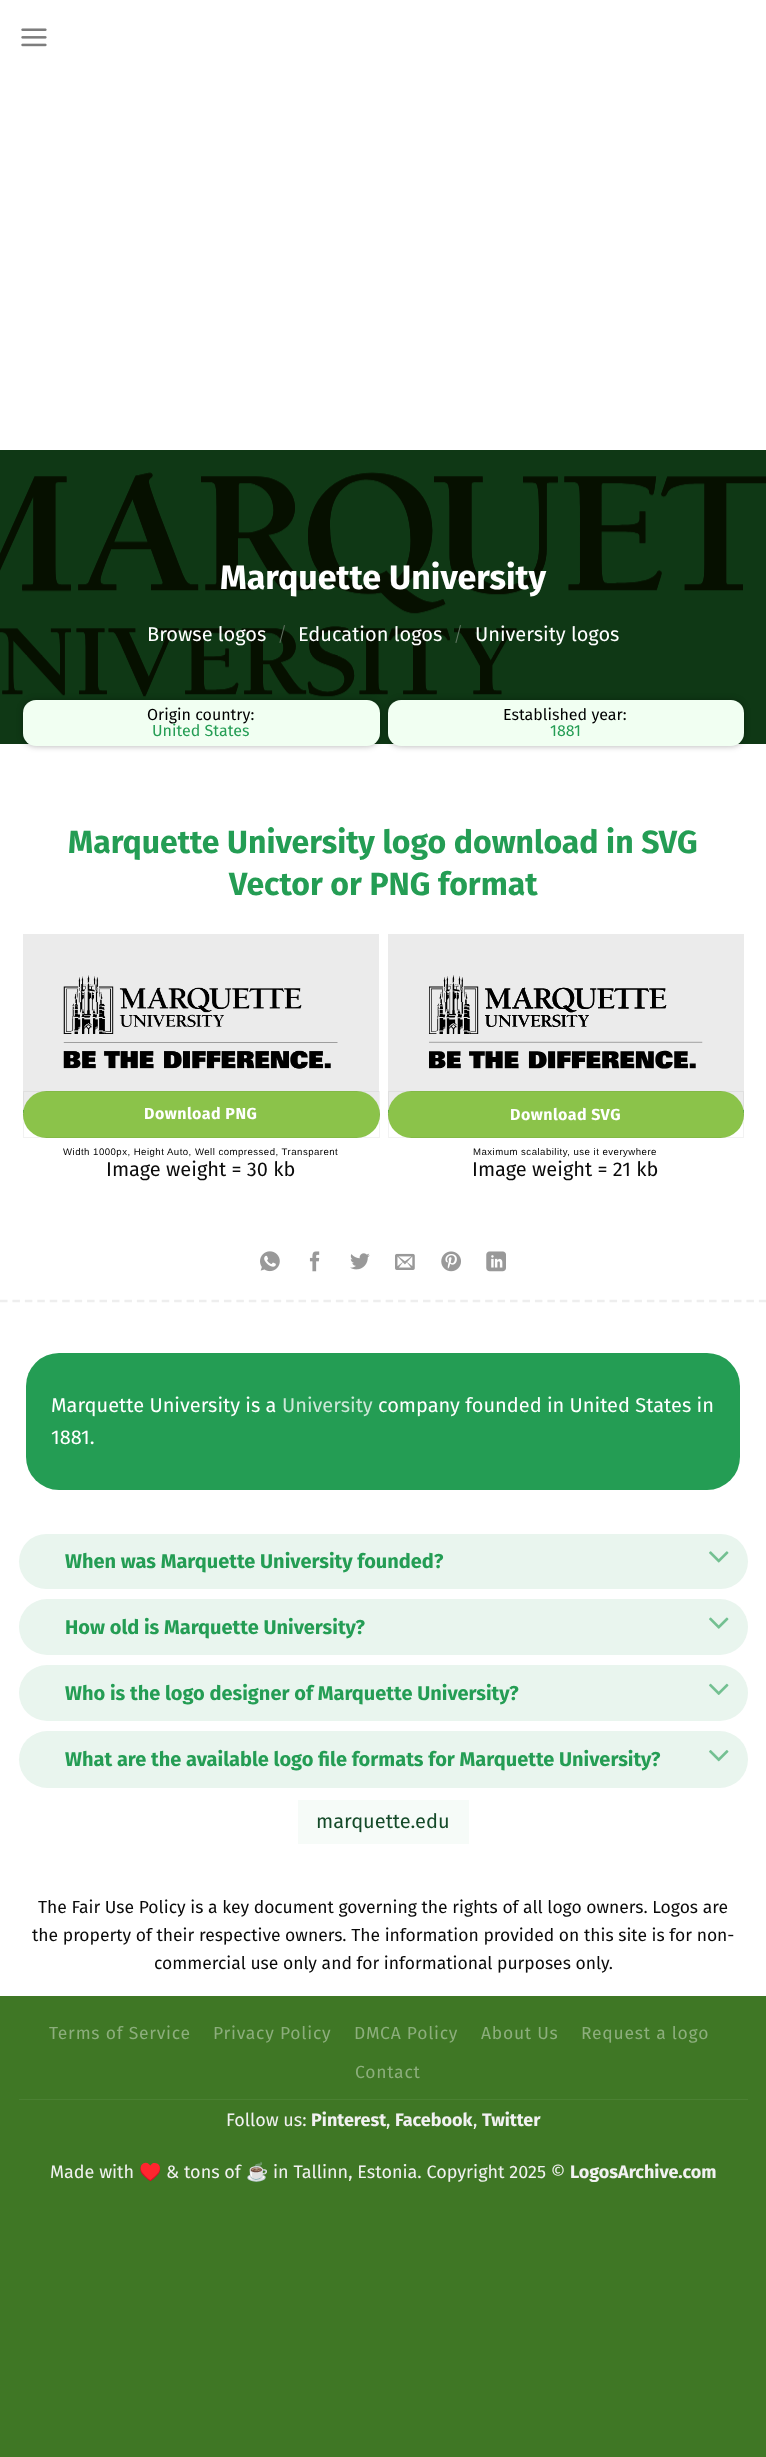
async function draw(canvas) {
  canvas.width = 766
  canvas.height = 2457
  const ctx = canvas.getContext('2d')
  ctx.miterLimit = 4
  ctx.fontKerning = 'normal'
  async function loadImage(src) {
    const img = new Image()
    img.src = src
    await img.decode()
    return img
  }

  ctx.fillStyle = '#3f7725'
  ctx.fillRect(0, 0, 766, 2457)
  ctx.fillStyle = '#fff'
  ctx.fillRect(0, 0, 766, 1996)
  ctx.drawImage(await loadImage('image0.png'), 21, 28, 26, 19)
  ctx.fillStyle = '#0f3815'
  ctx.fillRect(0, 450, 766, 294)
  ctx.drawImage(await loadImage('image1.png'), 0, 472, 766, 225)
  ctx.font = 'bold 34px Fira Sans'
  ctx.fillStyle = '#fff'
  ctx.fillText('Marquette University', 220, 589)
  ctx.font = '20px Fira Sans'
  ctx.fillText('Browse logos', 147, 641)
  ctx.font = '300 20px Fira Sans'
  ctx.fillStyle = '#607060'
  ctx.fillText('/', 277, 641)
  ctx.font = '20px Fira Sans'
  ctx.fillStyle = '#fff'
  ctx.fillText('Education logos', 298, 641)
  ctx.font = '300 20px Fira Sans'
  ctx.fillStyle = '#627864'
  ctx.fillText('/', 453, 641)
  ctx.font = '20px Fira Sans'
  ctx.fillStyle = '#fff'
  ctx.fillText('University logos', 475, 641)
  ctx.fillStyle = '#0000004f'
  ctx.filter = 'blur(3px)'
  ctx.beginPath()
  ctx.roundRect(23, 700, 357, 46, 13)
  ctx.fill()
  ctx.filter = 'none'
  ctx.fillStyle = '#f1fff2'
  ctx.beginPath()
  ctx.roundRect(23, 700, 357, 46, 13)
  ctx.fill()
  ctx.font = '16px Fira Sans'
  ctx.fillStyle = '#000'
  ctx.fillText('Origin country:', 147, 720)
  ctx.fillStyle = '#249d54'
  ctx.fillText('United States', 152, 736)
  ctx.fillStyle = '#0000004f'
  ctx.filter = 'blur(3px)'
  ctx.beginPath()
  ctx.roundRect(388, 700, 356, 46, 13)
  ctx.fill()
  ctx.filter = 'none'
  ctx.fillStyle = '#f1fff2'
  ctx.beginPath()
  ctx.roundRect(388, 700, 356, 46, 13)
  ctx.fill()
  ctx.fillStyle = '#000'
  ctx.fillText('Established year:', 503, 720)
  ctx.fillStyle = '#249d54'
  ctx.fillText('1881', 550, 736)
  ctx.font = 'bold 32px Fira Sans'
  ctx.fillText('Marquette University logo download in SVG', 68, 853)
  ctx.fillText('Vector or PNG format', 229, 895)
  ctx.beginPath()
  ctx.moveTo(0, 1301)
  ctx.lineTo(766, 1301)
  ctx.strokeStyle = '#eee'
  ctx.lineWidth = 2.5
  ctx.setLineDash([7.5, 4.94])
  ctx.stroke()
  ctx.fillStyle = '#ebebeb'
  ctx.fillRect(23, 934, 356, 176)
  ctx.fillStyle = '#259d54'
  ctx.fillRect(23, 1110, 1, 3)
  ctx.drawImage(await loadImage('image2.png'), 63, 975, 275, 94)
  ctx.fillStyle = '#8bc34a'
  ctx.beginPath()
  ctx.roundRect(23, 1091, 357, 47, 23.5)
  ctx.fill()
  ctx.strokeStyle = '#0000000d'
  ctx.lineWidth = 1
  ctx.setLineDash([])
  ctx.strokeRect(23.5, 1091.5, 356, 46)
  ctx.letterSpacing = '0.48px'
  ctx.font = 'bold 16px Fira Sans'
  ctx.fillStyle = '#fff'
  ctx.fillText('Download PNG', 144, 1119)
  ctx.font = '9.6px Liberation Sans'
  ctx.fillStyle = '#000'
  ctx.fillText('Width 1000px, Height Auto, Well compressed, Transparent', 63, 1155)
  ctx.letterSpacing = '0px'
  ctx.font = '20px Fira Sans'
  ctx.fillStyle = '#0a0a0a'
  ctx.fillText('Image weight = 30 kb', 106, 1176)
  ctx.fillStyle = '#ebebeb'
  ctx.fillRect(388, 934, 356, 176)
  ctx.fillStyle = '#259d54'
  ctx.fillRect(388, 1110, 356, 3)
  ctx.drawImage(await loadImage('image3.png'), 429, 975, 274, 94)
  ctx.fillStyle = '#8bc34a'
  ctx.beginPath()
  ctx.roundRect(388, 1091, 356, 47, 23.5)
  ctx.fill()
  ctx.strokeRect(388.5, 1091.5, 355, 46)
  ctx.letterSpacing = '0.48px'
  ctx.font = 'bold 16px Fira Sans'
  ctx.fillStyle = '#fff'
  ctx.fillText('Download SVG', 510, 1120)
  ctx.font = '9.6px Liberation Sans'
  ctx.fillStyle = '#000'
  ctx.fillText('Maximum scalability, use it everywhere', 473, 1155)
  ctx.letterSpacing = '0px'
  ctx.font = '20px Fira Sans'
  ctx.fillStyle = '#0a0a0a'
  ctx.fillText('Image weight = 21 kb', 472, 1176)
  ctx.drawImage(await loadImage('image4.png'), 260, 1251, 20, 21)
  ctx.drawImage(await loadImage('image5.png'), 309, 1251, 11, 21)
  ctx.drawImage(await loadImage('image6.png'), 350, 1253, 20, 17)
  ctx.drawImage(await loadImage('image7.png'), 395, 1253, 20, 17)
  ctx.drawImage(await loadImage('image8.png'), 441, 1251, 20, 21)
  ctx.drawImage(await loadImage('image9.png'), 486, 1251, 20, 21)
  ctx.fillStyle = '#249d54'
  ctx.beginPath()
  ctx.roundRect(26, 1353, 714, 137, 33)
  ctx.fill()
  ctx.fillStyle = '#fff'
  ctx.fillText('Marquette University is a', 51, 1412)
  ctx.fillStyle = '#cde8d8'
  ctx.fillText('University', 282, 1412)
  ctx.fillStyle = '#fff'
  ctx.fillText('company founded in United States in', 378, 1412)
  ctx.fillText('1881.', 51, 1444)
  ctx.fillStyle = '#e9f5ee'
  ctx.beginPath()
  ctx.roundRect(19, 1534, 729, 55, 27.5)
  ctx.fill()
  ctx.font = 'bold 20px Fira Sans'
  ctx.fillStyle = '#249d54'
  ctx.fillText('When was Marquette University founded?', 65, 1568)
  ctx.drawImage(await loadImage('image10.png'), 709, 1551, 20, 12)
  ctx.fillStyle = '#e9f5ee'
  ctx.beginPath()
  ctx.roundRect(19, 1599, 729, 56, 28)
  ctx.fill()
  ctx.fillStyle = '#249d54'
  ctx.fillText('How old is Marquette University?', 65, 1634)
  ctx.drawImage(await loadImage('image11.png'), 709, 1617, 20, 12)
  ctx.fillStyle = '#e9f5ee'
  ctx.beginPath()
  ctx.roundRect(19, 1665, 729, 56, 28)
  ctx.fill()
  ctx.fillStyle = '#249d54'
  ctx.fillText('Who is the logo designer of Marquette University?', 65, 1700)
  ctx.drawImage(await loadImage('image12.png'), 709, 1683, 20, 12)
  ctx.fillStyle = '#e9f5ee'
  ctx.beginPath()
  ctx.roundRect(19, 1731, 729, 57, 28.5)
  ctx.fill()
  ctx.fillStyle = '#249d54'
  ctx.fillText('What are the available logo file formats for Marquette University?', 65, 1766)
  ctx.drawImage(await loadImage('image13.png'), 709, 1750, 20, 12)
  ctx.fillStyle = '#f6fbf8'
  ctx.fillRect(298, 1800, 171, 44)
  ctx.font = '20px Fira Sans'
  ctx.fillStyle = '#144a29'
  ctx.fillText('marquette.edu', 316, 1828)
  ctx.font = '17.5px Fira Sans'
  ctx.fillStyle = '#0a0a0a'
  ctx.fillText('The Fair Use Policy is a key document governing the rights of all logo owners. Logos are', 38, 1913)
  ctx.fillText('the property of their respective owners. The information provided on this site is for non-', 32, 1941)
  ctx.fillText('commercial use only and for informational purposes only.', 154, 1969)
  ctx.fillStyle = '#4b8033'
  ctx.fillRect(19, 2099, 729, 1)
  ctx.letterSpacing = '0.75px'
  ctx.fillStyle = '#8cae7c'
  ctx.fillText('Terms of Service', 49, 2039)
  ctx.fillText('Privacy Policy', 213, 2039)
  ctx.fillText('DMCA Policy', 354, 2039)
  ctx.fillText('About Us', 481, 2039)
  ctx.fillText('Request a logo', 581, 2039)
  ctx.fillText('Contact', 355, 2078)
  ctx.letterSpacing = '0px'
  ctx.font = '18px Fira Sans'
  ctx.fillStyle = '#f1f1f1'
  ctx.fillText('Follow us:', 226, 2126)
  ctx.font = 'bold 18px Fira Sans'
  ctx.fillText('Pinterest', 311, 2126)
  ctx.font = '18px Fira Sans'
  ctx.fillText(',', 386, 2126)
  ctx.font = 'bold 18px Fira Sans'
  ctx.fillText('Facebook', 395, 2126)
  ctx.font = '18px Fira Sans'
  ctx.fillText(',', 473, 2126)
  ctx.font = 'bold 18px Fira Sans'
  ctx.fillText('Twitter', 482, 2126)
  ctx.font = '18px Fira Sans'
  ctx.fillText('Made with', 50, 2178)
  ctx.font = '18px Noto Color Emoji'
  ctx.fillText('♥️', 139, 2178)
  ctx.font = '18px Fira Sans'
  ctx.fillText('& tons of', 166, 2178)
  ctx.font = '18px Noto Color Emoji'
  ctx.fillText('☕', 246, 2178)
  ctx.font = '18px Fira Sans'
  ctx.fillText('in Tallinn, Estonia. Copyright 2025 ©', 273, 2178)
  ctx.font = 'bold 18px Fira Sans'
  ctx.fillText('LogosArchive.com', 570, 2178)
}

draw(document.querySelector('canvas'))
